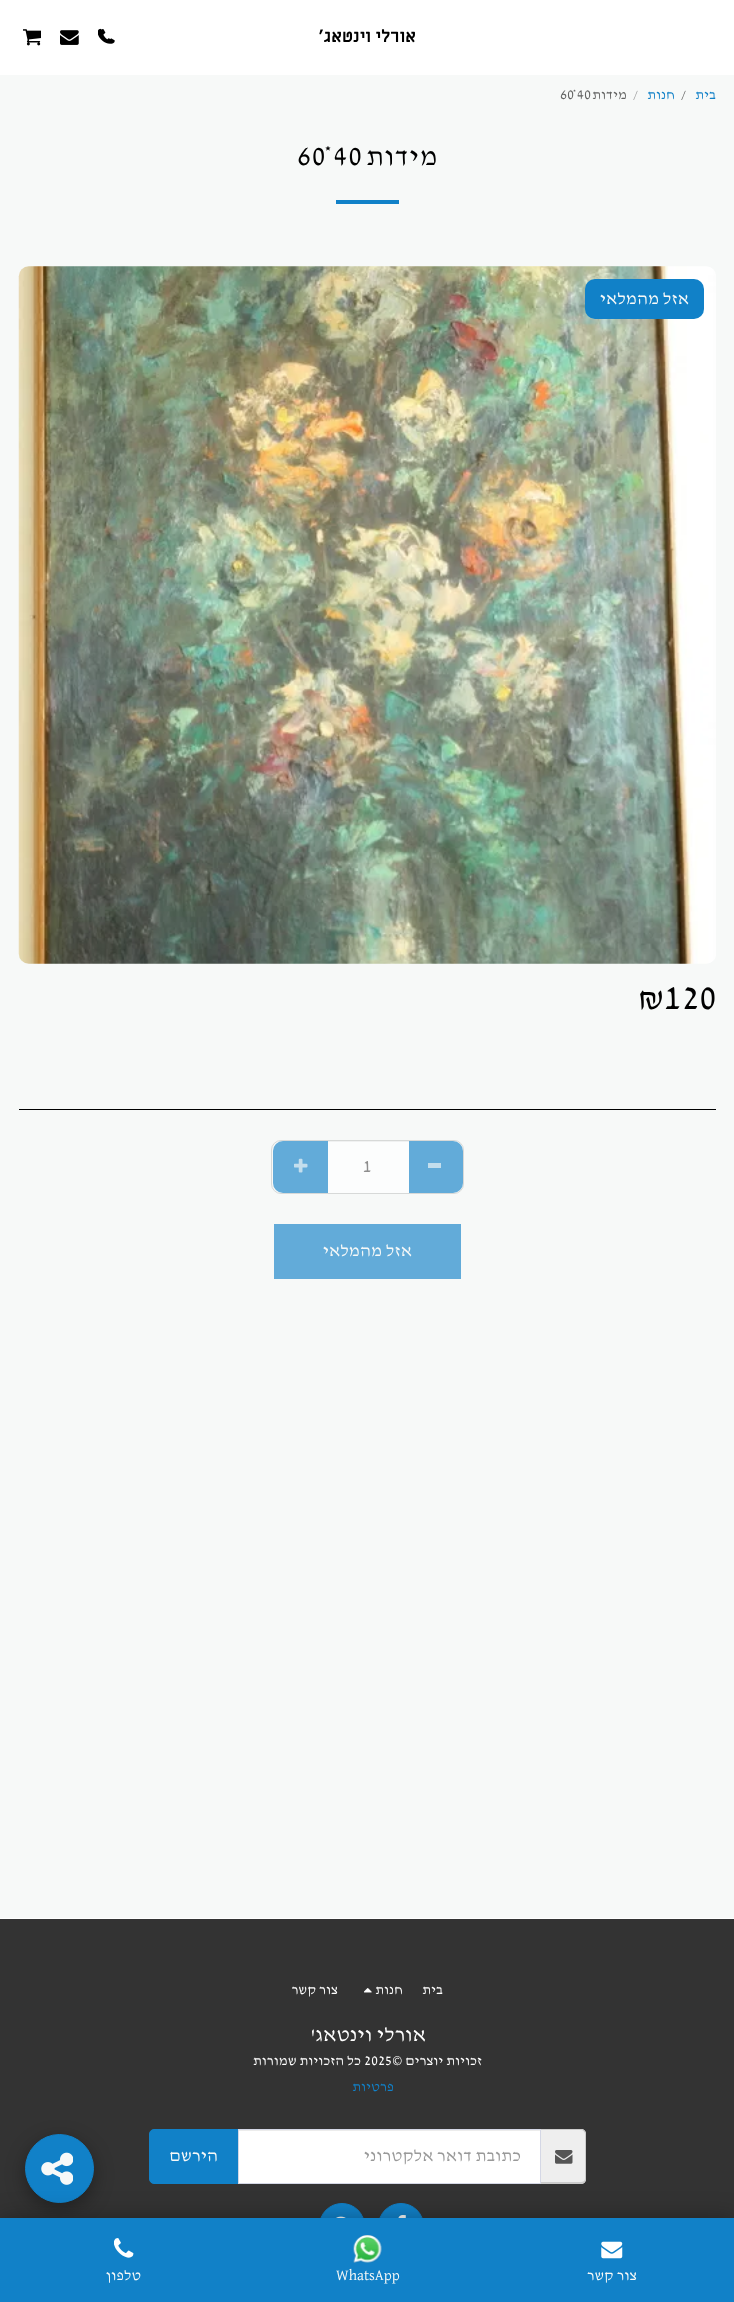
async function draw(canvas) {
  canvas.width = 734
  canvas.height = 2302
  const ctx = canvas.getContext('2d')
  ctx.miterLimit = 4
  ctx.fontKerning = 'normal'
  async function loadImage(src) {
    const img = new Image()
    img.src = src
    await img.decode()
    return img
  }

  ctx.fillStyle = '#f7f9f8'
  ctx.fillRect(0, 0, 734, 2302)
  ctx.fillStyle = '#fff'
  ctx.fillRect(0, 0, 734, 75)
  ctx.direction = 'rtl'
  ctx.font = 'bold 17.5px Miriam Libre'
  ctx.fillStyle = '#000'
  ctx.fillText('אורלי וינטאג\'', 416, 42)
  ctx.drawImage(await loadImage('image0.png'), 98, 28, 13, 16)
  ctx.drawImage(await loadImage('image1.png'), 101, 29, 14, 15)
  ctx.drawImage(await loadImage('image2.png'), 60, 30, 19, 15)
  ctx.drawImage(await loadImage('image3.png'), 23, 29, 18, 17)
  ctx.font = '14px David Libre'
  ctx.fillStyle = '#1181c8'
  ctx.fillText('בית', 716, 99)
  ctx.direction = 'ltr'
  ctx.fillStyle = '#636463'
  ctx.fillText('/', 681, 99)
  ctx.direction = 'rtl'
  ctx.fillStyle = '#1181c8'
  ctx.fillText('חנות', 675, 99)
  ctx.direction = 'ltr'
  ctx.fillStyle = '#9e9f9f'
  ctx.fillText('/', 633, 99)
  ctx.direction = 'rtl'
  ctx.fillStyle = '#636463'
  ctx.fillText('מידות', 627, 99)
  ctx.direction = 'ltr'
  ctx.fillText('60', 560, 99)
  ctx.fillText('*40', 572, 99)
  ctx.letterSpacing = '0.5px'
  ctx.direction = 'rtl'
  ctx.font = '28px David Libre'
  ctx.fillStyle = '#000'
  ctx.fillText('מידות', 438, 165)
  ctx.direction = 'ltr'
  ctx.fillText('*40', 323, 165)
  ctx.fillText('60', 297, 165)
  ctx.fillStyle = '#1181c8'
  ctx.fillRect(336, 200, 63, 4)
  ctx.drawImage(await loadImage('image4.png'), 18, 266, 698, 698)
  ctx.beginPath()
  ctx.roundRect(585, 279, 119, 40, 10)
  ctx.fill()
  ctx.letterSpacing = '0px'
  ctx.direction = 'rtl'
  ctx.font = '17.5px David Libre'
  ctx.fillStyle = '#f7f9f8'
  ctx.fillText('אזל מהמלאי', 689, 304)
  ctx.direction = 'ltr'
  ctx.font = '35px David Libre'
  ctx.fillStyle = '#000'
  ctx.fillText('₪120', 638, 1009)
  ctx.fillRect(19, 1109, 697, 1)
  ctx.beginPath()
  ctx.roundRect(271.5, 1140.5, 192, 53, 9.5)
  ctx.strokeStyle = '#d7d9d8'
  ctx.stroke()
  ctx.fillStyle = '#62abd9'
  ctx.beginPath()
  ctx.roundRect(408, 1141, 55, 52, [0, 10, 10, 0])
  ctx.fill()
  ctx.fillStyle = '#c3deed'
  ctx.fillRect(428, 1163, 13, 5)
  ctx.fillStyle = '#62abd9'
  ctx.beginPath()
  ctx.roundRect(273, 1141, 56, 52, [10, 0, 0, 10])
  ctx.fill()
  ctx.fillStyle = '#fcfdfd'
  ctx.fillRect(328, 1142, 81, 51)
  ctx.fillStyle = '#f0f1f1'
  ctx.fillRect(328, 1141, 81, 1)
  ctx.font = '17.5px David Libre'
  ctx.fillStyle = '#8e8e8e'
  ctx.fillText('1', 363, 1172)
  ctx.drawImage(await loadImage('image5.png'), 294, 1158, 14, 15)
  ctx.fillStyle = '#62abd9'
  ctx.fillRect(274, 1224, 187, 55)
  ctx.direction = 'rtl'
  ctx.fillStyle = '#f7f9f8'
  ctx.fillText('אזל מהמלאי', 412, 1256)
  ctx.fillStyle = '#333'
  ctx.fillRect(0, 1919, 734, 299)
  ctx.fillStyle = '#fff'
  ctx.fillRect(0, 1918, 734, 1)
  ctx.font = '14px David Libre'
  ctx.fillText('בית', 443, 1994)
  ctx.fillText('חנות', 403, 1994)
  ctx.drawImage(await loadImage('image6.png'), 364, 1988, 8, 5)
  ctx.fillText('צור קשר', 338, 1994)
  ctx.font = '21px David Libre'
  ctx.fillText('אורלי וינטאג\'', 426, 2041)
  ctx.font = '14px David Libre'
  ctx.fillText('זכויות יוצרים ©', 482, 2065)
  ctx.direction = 'ltr'
  ctx.fillText('2025', 364, 2065)
  ctx.direction = 'rtl'
  ctx.fillText('כל הזכויות שמורות', 361, 2065)
  ctx.fillStyle = '#1181c8'
  ctx.fillText('פרטיות', 394, 2091)
  ctx.fillStyle = '#eee'
  ctx.beginPath()
  ctx.roundRect(541, 2129, 45, 55, [0, 5, 5, 0])
  ctx.fill()
  ctx.fillStyle = '#ccc'
  ctx.beginPath()
  ctx.moveTo(541, 2129)
  ctx.lineTo(581, 2129)
  ctx.bezierCurveTo(584, 2129, 586, 2131, 586, 2134)
  ctx.lineTo(586, 2179)
  ctx.bezierCurveTo(586, 2182, 584, 2184, 581, 2184)
  ctx.lineTo(541, 2184)
  ctx.closePath()
  ctx.moveTo(541, 2130)
  ctx.lineTo(581, 2130)
  ctx.bezierCurveTo(583, 2130, 585, 2132, 585, 2134)
  ctx.lineTo(585, 2179)
  ctx.bezierCurveTo(585, 2181, 583, 2182, 581, 2182)
  ctx.lineTo(541, 2182)
  ctx.closePath()
  ctx.fill('evenodd')
  ctx.drawImage(await loadImage('image7.png'), 555, 2150, 18, 14)
  ctx.fillStyle = '#fff'
  ctx.fillRect(239, 2131, 301, 52)
  ctx.fillStyle = '#ececec'
  ctx.fillRect(239, 2130, 301, 1)
  ctx.fillStyle = '#1181c8'
  ctx.beginPath()
  ctx.roundRect(149.5, 2129.5, 89, 54, [4.5, 0, 0, 4.5])
  ctx.fill()
  ctx.strokeStyle = '#1181c8'
  ctx.stroke()
  ctx.strokeStyle = '#d4d7e5'
  ctx.strokeRect(238.5, 2129.5, 302, 54)
  ctx.font = '17.5px David Libre'
  ctx.fillStyle = '#999'
  ctx.fillText('כתובת דואר אלקטרוני', 521, 2161)
  ctx.fillStyle = '#f7f9f8'
  ctx.fillText('הירשם', 218, 2161)
  ctx.fillStyle = '#1181c8'
  ctx.beginPath()
  ctx.arc(401, 2226, 22.5, 0, 2 * Math.PI)
  ctx.fill()
  ctx.strokeStyle = '#1181c8'
  ctx.stroke()
  ctx.drawImage(await loadImage('image8.png'), 398, 2215, 8, 3)
  ctx.beginPath()
  ctx.arc(342, 2226, 22.5, 0, 2 * Math.PI)
  ctx.fill()
  ctx.stroke()
  ctx.drawImage(await loadImage('image9.png'), 336, 2216, 10, 2)
  ctx.fillStyle = '#00000059'
  ctx.filter = 'blur(9.5px)'
  ctx.beginPath()
  ctx.roundRect(25, 2140, 69, 69, 34.5)
  ctx.fill()
  ctx.filter = 'none'
  ctx.fillStyle = '#1181c8'
  ctx.beginPath()
  ctx.arc(59.5, 2168.5, 34, 0, 2 * Math.PI)
  ctx.fill()
  ctx.stroke()
  ctx.drawImage(await loadImage('image10.png'), 41, 2152, 32, 33)
  ctx.fillStyle = '#0000004f'
  ctx.filter = 'blur(12.5px)'
  ctx.beginPath()
  ctx.rect(0, 2218, 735, 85)
  ctx.fill()
  ctx.filter = 'none'
  ctx.fillStyle = '#1181c8'
  ctx.fillRect(0, 2218, 734, 84)
  ctx.drawImage(await loadImage('image11.png'), 601, 2241, 22, 18)
  ctx.font = '15px David Libre'
  ctx.fillStyle = '#f7f9f8'
  ctx.fillText('צור קשר', 637, 2280)
  ctx.drawImage(await loadImage('image12.png'), 353, 2235, 29, 28)
  ctx.direction = 'ltr'
  ctx.fillText('WhatsApp', 336, 2280)
  ctx.drawImage(await loadImage('image13.png'), 114, 2238, 20, 20)
  ctx.direction = 'rtl'
  ctx.fillText('טלפון', 141, 2280)
}

draw(document.querySelector('canvas'))
